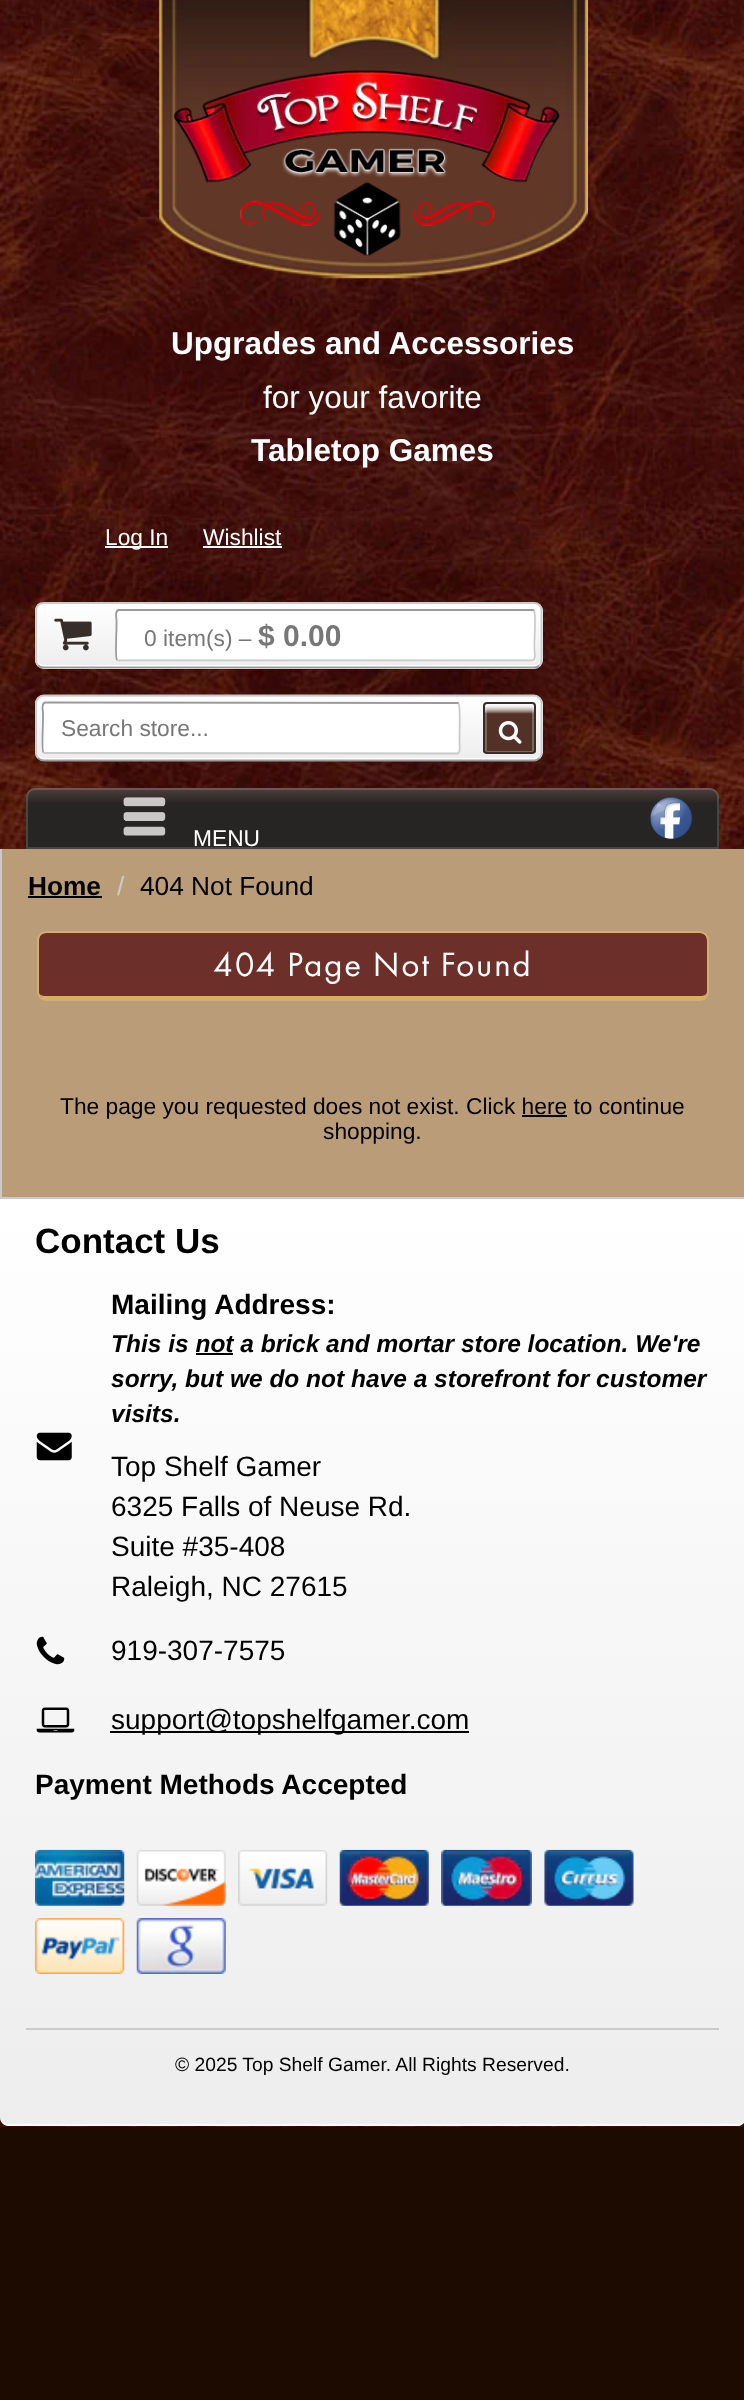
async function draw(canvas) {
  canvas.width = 744
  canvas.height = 2400
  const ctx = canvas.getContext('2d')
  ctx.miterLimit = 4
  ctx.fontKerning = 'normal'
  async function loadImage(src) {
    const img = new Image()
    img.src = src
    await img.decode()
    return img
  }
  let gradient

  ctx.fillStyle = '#1d0b01'
  ctx.fillRect(0, 0, 744, 2400)
  ctx.drawImage(await loadImage('image0.png'), 0, 0, 744, 2127)
  ctx.drawImage(await loadImage('image1.png'), 159, 0, 429, 279)
  ctx.drawImage(await loadImage('image2.png'), 173, 70, 387, 186)
  ctx.font = 'bold 31.5px Liberation Sans'
  ctx.fillStyle = '#fff'
  ctx.fillText('Upgrades and Accessories', 171, 354)
  ctx.font = '31.5px Liberation Sans'
  ctx.fillText('for your favorite', 263, 408)
  ctx.font = 'bold 31.5px Liberation Sans'
  ctx.fillText('Tabletop Games', 251, 461)
  ctx.fillRect(105, 546, 63, 2)
  ctx.font = '22.75px Liberation Sans'
  ctx.fillText('Log In', 105, 545)
  ctx.fillText('Wishlist', 203, 545)
  ctx.fillRect(203, 546, 79, 2)
  ctx.save()
  ctx.beginPath()
  ctx.roundRect(35, 602, 508, 67, 9)
  ctx.clip()
  gradient = ctx.createLinearGradient(289, 604, 289, 667)
  gradient.addColorStop(0, '#fff')
  gradient.addColorStop(1, '#ededed')
  ctx.fillStyle = gradient
  ctx.fillRect(35, 604, 508, 63)
  gradient = ctx.createLinearGradient(289, 667, 289, 730)
  gradient.addColorStop(0, '#fff')
  gradient.addColorStop(1, '#ededed')
  ctx.fillStyle = gradient
  ctx.fillRect(35, 667, 508, 2)
  ctx.restore()
  ctx.beginPath()
  ctx.moveTo(37, 658)
  ctx.bezierCurveTo(37, 662, 39, 667, 44, 667)
  ctx.lineTo(534, 667)
  ctx.bezierCurveTo(539, 667, 541, 662, 541, 658)
  ctx.bezierCurveTo(541, 662, 538, 665, 534, 665)
  ctx.lineTo(44, 665)
  ctx.bezierCurveTo(40, 665, 37, 662, 37, 658)
  ctx.closePath()
  ctx.fill()
  ctx.beginPath()
  ctx.moveTo(539.5, 665.5)
  ctx.bezierCurveTo(538, 667, 536, 667.5, 534, 667.5)
  ctx.lineTo(44, 667.5)
  ctx.bezierCurveTo(41.5, 667.5, 39.5, 667, 38, 665.5)
  ctx.strokeStyle = '#9a9a9a'
  ctx.lineWidth = 1.8
  ctx.stroke()
  ctx.beginPath()
  ctx.moveTo(38, 665.5)
  ctx.bezierCurveTo(36.5, 664, 36, 662, 36, 660)
  ctx.lineTo(36, 611)
  ctx.bezierCurveTo(36, 608.5, 36.5, 606.5, 38, 605)
  ctx.bezierCurveTo(39.5, 603.5, 41.5, 603, 44, 603)
  ctx.lineTo(534, 603)
  ctx.bezierCurveTo(536, 603, 538, 603.5, 539.5, 605)
  ctx.bezierCurveTo(541, 606.5, 541.5, 608.5, 541.5, 611)
  ctx.lineTo(541.5, 660)
  ctx.bezierCurveTo(541.5, 662, 541, 664, 539.5, 665.5)
  ctx.strokeStyle = '#cacaca'
  ctx.stroke()
  ctx.drawImage(await loadImage('image3.png'), 54, 618, 38, 33)
  ctx.beginPath()
  ctx.roundRect(116, 609, 420, 53, 4)
  ctx.fill()
  ctx.beginPath()
  ctx.moveTo(534, 610.5)
  ctx.bezierCurveTo(536, 612.5, 534.5, 638.5, 534.5, 643)
  ctx.lineTo(534.5, 650.5)
  ctx.bezierCurveTo(534.5, 651.5, 536.5, 660.5, 532, 660.5)
  ctx.lineTo(118, 660.5)
  ctx.lineTo(117, 660)
  ctx.stroke()
  ctx.beginPath()
  ctx.moveTo(117, 660)
  ctx.bezierCurveTo(115, 658, 116.5, 632, 116.5, 627.5)
  ctx.lineTo(116.5, 620)
  ctx.bezierCurveTo(116.5, 619, 114.5, 610, 119, 610)
  ctx.lineTo(533, 610)
  ctx.lineTo(534, 610.5)
  ctx.strokeStyle = '#9a9a9a'
  ctx.stroke()
  ctx.fillStyle = '#777'
  ctx.fillText('0', 144, 646)
  ctx.fillText('item(s) –', 163, 646)
  ctx.font = 'bold 30px Liberation Sans'
  ctx.fillText('$ 0.00', 258, 646)
  ctx.save()
  ctx.beginPath()
  ctx.roundRect(35, 695, 508, 66, 9)
  ctx.clip()
  gradient = ctx.createLinearGradient(289, 634, 289, 697)
  gradient.addColorStop(0, '#fff')
  gradient.addColorStop(1, '#ededed')
  ctx.fillStyle = gradient
  ctx.fillRect(35, 695, 508, 2)
  gradient = ctx.createLinearGradient(289, 697, 289, 760)
  gradient.addColorStop(0, '#fff')
  gradient.addColorStop(1, '#ededed')
  ctx.fillStyle = gradient
  ctx.fillRect(35, 697, 508, 63)
  ctx.restore()
  ctx.fillStyle = '#fff'
  ctx.beginPath()
  ctx.moveTo(37, 751)
  ctx.bezierCurveTo(37, 755, 39, 760, 44, 760)
  ctx.lineTo(534, 760)
  ctx.bezierCurveTo(539, 760, 541, 755, 541, 751)
  ctx.bezierCurveTo(541, 755, 538, 758, 534, 758)
  ctx.lineTo(44, 758)
  ctx.bezierCurveTo(40, 758, 37, 755, 37, 751)
  ctx.closePath()
  ctx.fill()
  ctx.beginPath()
  ctx.moveTo(539.5, 758)
  ctx.bezierCurveTo(538, 759.5, 536, 760.5, 534, 760.5)
  ctx.lineTo(44, 760.5)
  ctx.bezierCurveTo(41.5, 760.5, 39.5, 759.5, 38, 758)
  ctx.stroke()
  ctx.beginPath()
  ctx.moveTo(38, 758)
  ctx.bezierCurveTo(36.5, 756.5, 36, 754.5, 36, 752.5)
  ctx.lineTo(36, 703.5)
  ctx.bezierCurveTo(36, 701.5, 36.5, 699.5, 38, 698)
  ctx.bezierCurveTo(39.5, 696.5, 41.5, 695.5, 44, 695.5)
  ctx.lineTo(534, 695.5)
  ctx.bezierCurveTo(536, 695.5, 538, 696.5, 539.5, 698)
  ctx.bezierCurveTo(541, 699.5, 541.5, 701.5, 541.5, 703.5)
  ctx.lineTo(541.5, 752.5)
  ctx.bezierCurveTo(541.5, 754.5, 541, 756.5, 539.5, 758)
  ctx.strokeStyle = '#cacaca'
  ctx.stroke()
  ctx.beginPath()
  ctx.roundRect(42, 702, 418, 52, 4)
  ctx.fill()
  ctx.beginPath()
  ctx.moveTo(458.5, 703.5)
  ctx.bezierCurveTo(460.5, 705.5, 459.5, 731.5, 459.5, 735.5)
  ctx.lineTo(459.5, 743)
  ctx.bezierCurveTo(459.5, 744, 461, 753.5, 457, 753.5)
  ctx.lineTo(44.5, 753)
  ctx.lineTo(43.5, 752.5)
  ctx.stroke()
  ctx.beginPath()
  ctx.moveTo(43.5, 752.5)
  ctx.bezierCurveTo(41.5, 750.5, 43, 724.5, 43, 720.5)
  ctx.lineTo(43, 713)
  ctx.bezierCurveTo(43, 712, 41, 702.5, 45.5, 702.5)
  ctx.lineTo(458, 703)
  ctx.lineTo(458.5, 703.5)
  ctx.strokeStyle = '#9a9a9a'
  ctx.stroke()
  ctx.font = '22.75px Liberation Sans'
  ctx.fillStyle = '#777'
  ctx.fillText('Search store...', 61, 736)
  ctx.save()
  ctx.beginPath()
  ctx.roundRect(483, 702, 53, 52, 4)
  ctx.clip()
  gradient = ctx.createLinearGradient(509, 704, 509, 753)
  gradient.addColorStop(0, '#ffffff1a')
  gradient.addColorStop(0.2, '#543126')
  ctx.fillStyle = gradient
  ctx.fillRect(483, 704, 53, 49)
  ctx.restore()
  ctx.beginPath()
  ctx.roundRect(486, 705, 47, 47, 1)
  ctx.strokeStyle = '#ffffff40'
  ctx.lineWidth = 2
  ctx.stroke()
  ctx.beginPath()
  ctx.roundRect(484, 703, 51, 50, 3)
  ctx.strokeStyle = '#372e2a'
  ctx.stroke()
  ctx.drawImage(await loadImage('image4.png'), 498, 721, 24, 23)
  gradient = ctx.createLinearGradient(373, 788, 373, 849)
  gradient.addColorStop(0, '#503f3d')
  gradient.addColorStop(0.25, '#272523')
  ctx.fillStyle = gradient
  ctx.beginPath()
  ctx.roundRect(26, 788, 693, 61, [9, 9, 0, 0])
  ctx.fill()
  ctx.beginPath()
  ctx.roundRect(27, 789, 691, 59, [8, 8, 0, 0])
  ctx.strokeStyle = '#ffffff26'
  ctx.stroke()
  ctx.drawImage(await loadImage('image5.png'), 123, 797, 43, 39)
  ctx.fillStyle = '#fff'
  ctx.fillText('MENU', 193, 846)
  ctx.drawImage(await loadImage('image6.png'), 650, 797, 43, 43)
  ctx.fillStyle = '#ba9d78'
  ctx.fillRect(2, 849, 742, 348)
  ctx.fillStyle = '#cacaca'
  ctx.fillRect(0, 849, 2, 348)
  ctx.font = 'bold 26.25px Liberation Sans'
  ctx.fillStyle = '#000'
  ctx.fillText('Home', 28, 895)
  ctx.fillRect(28, 896, 74, 2)
  ctx.font = '26.25px Liberation Sans'
  ctx.fillStyle = '#ccc'
  ctx.fillText('/', 117, 895)
  ctx.fillStyle = '#000'
  ctx.fillText('404 Not Found', 140, 895)
  ctx.fillStyle = '#6d2f2a'
  ctx.beginPath()
  ctx.moveTo(46, 933)
  ctx.lineTo(700, 933)
  ctx.bezierCurveTo(704, 933, 707, 936, 707, 940)
  ctx.lineTo(707, 992)
  ctx.bezierCurveTo(707, 994, 704, 996, 700, 996)
  ctx.lineTo(46, 996)
  ctx.bezierCurveTo(42, 996, 38, 994, 38, 992)
  ctx.lineTo(38, 940)
  ctx.bezierCurveTo(38, 936, 42, 933, 46, 933)
  ctx.closePath()
  ctx.fill()
  ctx.beginPath()
  ctx.roundRect(38, 932, 670, 68, 8)
  ctx.strokeStyle = '#d4af6c'
  ctx.stroke()
  ctx.fillStyle = '#d4af6c'
  ctx.fillRect(42, 996, 663, 4)
  ctx.letterSpacing = '1.75px'
  ctx.font = '35px Futura PT'
  ctx.fillStyle = '#fff'
  ctx.fillText('404 Page Not Found', 213, 976)
  ctx.letterSpacing = '0px'
  ctx.font = '22.75px Liberation Sans'
  ctx.fillStyle = '#000'
  ctx.fillText('The page you requested does not exist. Click here to continue', 60, 1114)
  ctx.fillRect(522, 1115, 45, 2)
  ctx.fillText('shopping.', 323, 1139)
  gradient = ctx.createLinearGradient(373, 1199, 373, 2126)
  gradient.addColorStop(0, '#fff')
  gradient.addColorStop(1, '#ededed')
  ctx.fillStyle = gradient
  ctx.beginPath()
  ctx.moveTo(0, 1199)
  ctx.lineTo(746, 1199)
  ctx.lineTo(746, 2117)
  ctx.bezierCurveTo(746, 2122, 742, 2126, 737, 2126)
  ctx.lineTo(9, 2126)
  ctx.bezierCurveTo(4, 2126, 0, 2122, 0, 2117)
  ctx.closePath()
  ctx.fill()
  ctx.fillStyle = '#fff'
  ctx.beginPath()
  ctx.moveTo(0, 2116)
  ctx.lineTo(0, 2117)
  ctx.bezierCurveTo(0, 2122, 4, 2126, 9, 2126)
  ctx.lineTo(737, 2126)
  ctx.bezierCurveTo(742, 2126, 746, 2122, 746, 2117)
  ctx.lineTo(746, 2116)
  ctx.bezierCurveTo(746, 2121, 742, 2124, 737, 2124)
  ctx.lineTo(9, 2124)
  ctx.bezierCurveTo(4, 2124, 0, 2121, 0, 2116)
  ctx.closePath()
  ctx.fill()
  ctx.fillStyle = '#cacaca'
  ctx.fillRect(0, 1197, 744, 2)
  ctx.font = 'bold 35px Liberation Sans'
  ctx.fillStyle = '#000'
  ctx.fillText('Contact Us', 35, 1253)
  ctx.drawImage(await loadImage('image7.png'), 36, 1432, 36, 29)
  ctx.font = 'bold 28px Liberation Sans'
  ctx.fillText('Mailing Address:', 111, 1314)
  ctx.font = 'italic bold 24.5px Liberation Sans'
  ctx.fillText('This is not a brick and mortar store location. We\'re', 111, 1352)
  ctx.fillRect(196, 1353, 37, 2)
  ctx.fillText('sorry, but we do not have a storefront for customer', 111, 1387)
  ctx.fillText('visits.', 111, 1422)
  ctx.font = '28px Liberation Sans'
  ctx.fillText('Top Shelf Gamer', 111, 1476)
  ctx.fillText('6325 Falls of Neuse Rd.', 111, 1516)
  ctx.fillText('Suite #35-408', 111, 1556)
  ctx.fillText('Raleigh, NC 27615', 111, 1596)
  ctx.drawImage(await loadImage('image8.png'), 36, 1636, 29, 29)
  ctx.fillText('919-307-7575', 111, 1660)
  ctx.drawImage(await loadImage('image9.png'), 36, 1707, 39, 26)
  ctx.fillRect(110, 1731, 359, 2)
  ctx.fillText('support@topshelfgamer.com', 111, 1729)
  ctx.font = 'bold 28px Liberation Sans'
  ctx.fillText('Payment Methods Accepted', 35, 1794)
  ctx.drawImage(await loadImage('image10.png'), 35, 1849, 90, 57)
  ctx.drawImage(await loadImage('image11.png'), 136, 1850, 90, 56)
  ctx.drawImage(await loadImage('image12.png'), 238, 1850, 90, 56)
  ctx.drawImage(await loadImage('image13.png'), 339, 1849, 90, 57)
  ctx.drawImage(await loadImage('image14.png'), 441, 1849, 91, 57)
  ctx.drawImage(await loadImage('image15.png'), 544, 1849, 90, 57)
  ctx.drawImage(await loadImage('image16.png'), 35, 1918, 90, 56)
  ctx.drawImage(await loadImage('image17.png'), 136, 1918, 90, 56)
  ctx.fillStyle = '#cacaca'
  ctx.fillRect(26, 2028, 693, 2)
  ctx.font = '19.25px Liberation Sans'
  ctx.fillStyle = '#000'
  ctx.fillText('© 2025 Top Shelf Gamer. All Rights Reserved.', 175, 2071)
}

draw(document.querySelector('canvas'))
